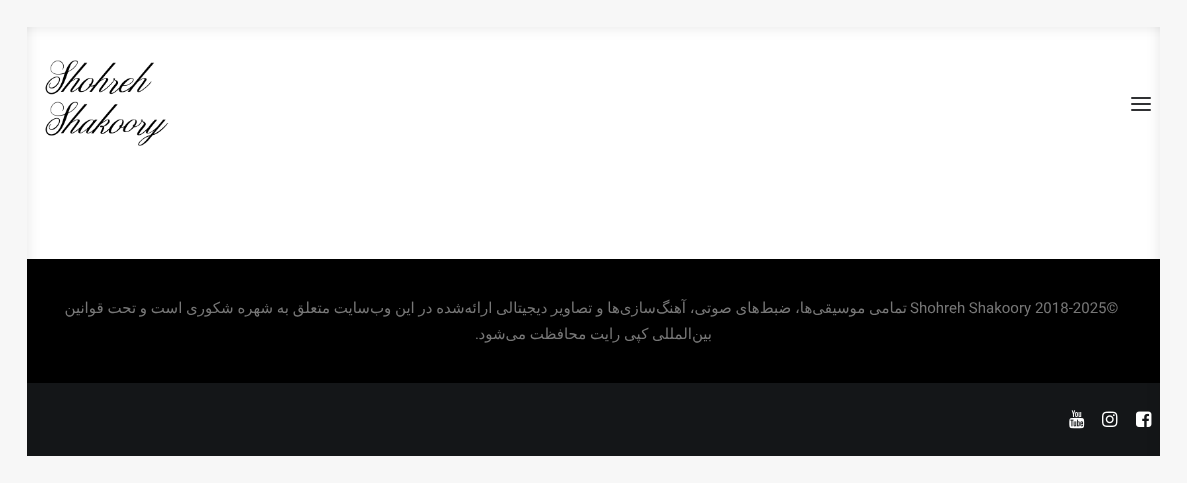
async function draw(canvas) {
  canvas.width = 1187
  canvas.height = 483
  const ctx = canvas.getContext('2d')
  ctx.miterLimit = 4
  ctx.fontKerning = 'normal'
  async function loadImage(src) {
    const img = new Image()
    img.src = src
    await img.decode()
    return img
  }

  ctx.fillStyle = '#141618'
  ctx.fillRect(0, 0, 1187, 483)
  ctx.fillStyle = '#fff'
  ctx.fillRect(27, 27, 1133, 232)
  ctx.fillStyle = '#0000001a'
  ctx.filter = 'blur(7px)'
  ctx.beginPath()
  ctx.rect(0, 0, 1187, 27)
  ctx.fill()
  ctx.filter = 'none'
  ctx.drawImage(await loadImage('image0.png'), 45, 60, 124, 86)
  ctx.fillStyle = '#000'
  ctx.fillRect(27, 259, 1133, 124)
  ctx.fillStyle = '#0000001a'
  ctx.filter = 'blur(7px)'
  ctx.beginPath()
  ctx.rect(0, 0, 27, 483)
  ctx.fill()
  ctx.filter = 'none'
  ctx.fillStyle = '#303133'
  ctx.beginPath()
  ctx.roundRect(1131, 103, 20, 2, 1)
  ctx.fill()
  ctx.beginPath()
  ctx.roundRect(1131, 97, 20, 2, 1)
  ctx.fill()
  ctx.beginPath()
  ctx.roundRect(1131, 109, 20, 2, 1)
  ctx.fill()
  ctx.drawImage(await loadImage('image1.png'), 1136, 411, 16, 16)
  ctx.fillStyle = '#0000001a'
  ctx.filter = 'blur(7px)'
  ctx.beginPath()
  ctx.rect(1160, 0, 27, 483)
  ctx.fill()
  ctx.filter = 'none'
  ctx.fillStyle = '#f7f7f7'
  ctx.fillRect(27, 0, 1133, 27)
  ctx.fillRect(0, 0, 27, 483)
  ctx.fillRect(1160, 0, 27, 456)
  ctx.fillRect(27, 456, 1160, 27)
  ctx.font = '15px Roboto'
  ctx.fillStyle = '#777'
  ctx.fillText('Shohreh Shakoory 2018-2025©', 910, 313)
  ctx.wordSpacing = '-1px'
  ctx.direction = 'rtl'
  ctx.font = '15px DejaVu Sans'
  ctx.fillText('تمامی موسیقی‌ها، ضبط‌های صوتی، آهنگ‌سازی‌ها و تصاویر دیجیتالی ارائه‌شده در این وب‌سایت متعلق به شهره شکوری است و تحت قوانین', 907, 313)
  ctx.fillText('بین‌المللی کپی رایت محافظت می‌شود', 712, 339)
  ctx.wordSpacing = '0px'
  ctx.font = '15px Roboto'
  ctx.fillText('.', 479, 339)
  ctx.drawImage(await loadImage('image2.png'), 1102, 411, 16, 16)
  ctx.drawImage(await loadImage('image3.png'), 1069, 410, 16, 19)
}

draw(document.querySelector('canvas'))
